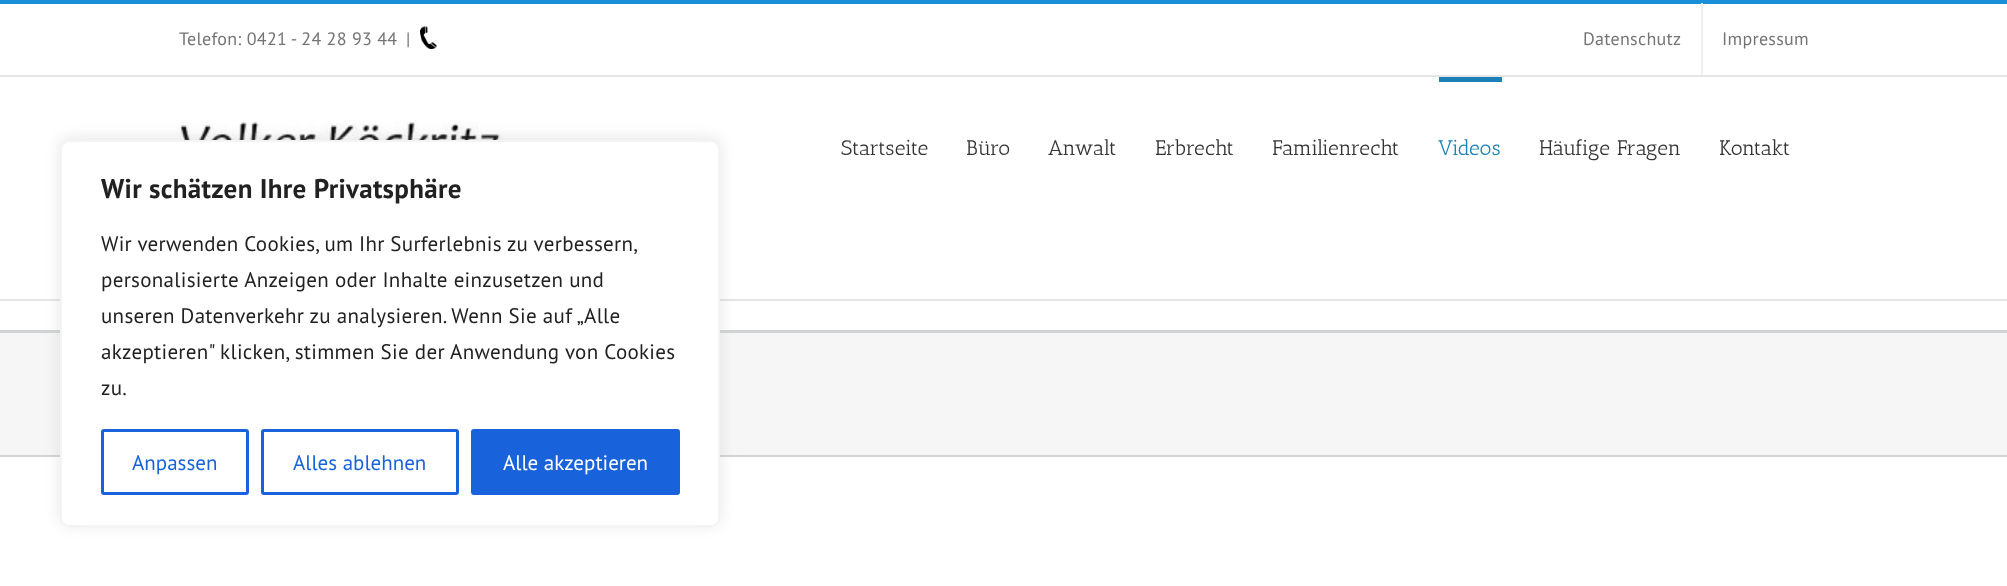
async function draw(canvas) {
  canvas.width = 2007
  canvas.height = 586
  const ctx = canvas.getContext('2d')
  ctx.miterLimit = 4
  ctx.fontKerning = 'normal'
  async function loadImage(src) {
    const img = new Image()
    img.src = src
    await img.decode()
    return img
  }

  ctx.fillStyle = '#fff'
  ctx.fillRect(0, 0, 2007, 586)
  ctx.fillStyle = '#198fd9'
  ctx.fillRect(0, 0, 2007, 4)
  ctx.fillStyle = '#e5e5e5'
  ctx.fillRect(0, 75, 2007, 2)
  ctx.letterSpacing = '0.3px'
  ctx.font = '18px PT Sans'
  ctx.fillStyle = '#747474'
  ctx.fillText('Telefon: 0421 - 24 28 93 44', 179, 45)
  ctx.fillText('|', 406, 45)
  ctx.drawImage(await loadImage('image0.png'), 420, 26, 17, 23)
  ctx.fillText('Datenschutz', 1583, 45)
  ctx.fillStyle = '#efefef'
  ctx.fillRect(1701, 3, 2, 72)
  ctx.fillStyle = '#747474'
  ctx.fillText('Impressum', 1722, 45)
  ctx.fillStyle = '#e5e5e5'
  ctx.fillRect(0, 299, 2007, 2)
  ctx.drawImage(await loadImage('image1.png'), 178, 122, 331, 18)
  ctx.letterSpacing = '0.25px'
  ctx.font = '21px Antic Slab'
  ctx.fillStyle = '#333'
  ctx.fillText('Startseite', 841, 155)
  ctx.fillText('Büro', 966, 155)
  ctx.fillText('Anwalt', 1048, 155)
  ctx.fillText('Erbrecht', 1155, 155)
  ctx.fillText('Familienrecht', 1272, 155)
  ctx.fillStyle = '#1a80b6'
  ctx.fillRect(1439, 77, 63, 5)
  ctx.fillText('Videos', 1438, 155)
  ctx.fillStyle = '#333'
  ctx.fillText('Häufige Fragen', 1539, 155)
  ctx.fillText('Kontakt', 1719, 155)
  ctx.fillStyle = '#f6f6f6'
  ctx.fillRect(0, 333, 2007, 122)
  ctx.fillStyle = '#d2d3d4'
  ctx.fillRect(0, 330, 2007, 3)
  ctx.fillRect(0, 455, 2007, 2)
  ctx.fillStyle = '#acabab4d'
  ctx.filter = 'blur(7.5px)'
  ctx.beginPath()
  ctx.roundRect(60, 138, 660, 387, 9)
  ctx.fill()
  ctx.filter = 'none'
  ctx.fillStyle = '#fff'
  ctx.beginPath()
  ctx.roundRect(61, 141, 658, 385, 8)
  ctx.fill()
  ctx.strokeStyle = '#f4f4f4'
  ctx.lineWidth = 2
  ctx.stroke()
  ctx.letterSpacing = '0.3px'
  ctx.font = 'bold 27px PT Sans'
  ctx.fillStyle = '#212121'
  ctx.fillText('Wir schätzen Ihre Privatsphäre', 101, 198)
  ctx.wordSpacing = '-0.25px'
  ctx.font = '21px PT Sans'
  ctx.fillText('Wir verwenden Cookies, um Ihr Surferlebnis zu verbessern,', 101, 251)
  ctx.wordSpacing = '0px'
  ctx.fillText('personalisierte Anzeigen oder Inhalte einzusetzen und', 101, 287)
  ctx.fillText('unseren Datenverkehr zu analysieren. Wenn Sie auf „Alle', 101, 323)
  ctx.fillText('akzeptieren" klicken, stimmen Sie der Anwendung von Cookies', 101, 359)
  ctx.fillText('zu.', 101, 395)
  ctx.beginPath()
  ctx.roundRect(102.5, 430.5, 145, 63, 1.5)
  ctx.strokeStyle = '#1863dc'
  ctx.lineWidth = 3
  ctx.stroke()
  ctx.letterSpacing = '0px'
  ctx.fillStyle = '#1863dc'
  ctx.fillText('Anpassen', 132, 470)
  ctx.beginPath()
  ctx.roundRect(262.5, 430.5, 195, 63, 1.5)
  ctx.stroke()
  ctx.fillText('Alles ablehnen', 293, 470)
  ctx.beginPath()
  ctx.roundRect(472.5, 430.5, 206, 63, 1.5)
  ctx.fill()
  ctx.stroke()
  ctx.fillStyle = '#fff'
  ctx.fillText('Alle akzeptieren', 503, 470)
}

draw(document.querySelector('canvas'))
